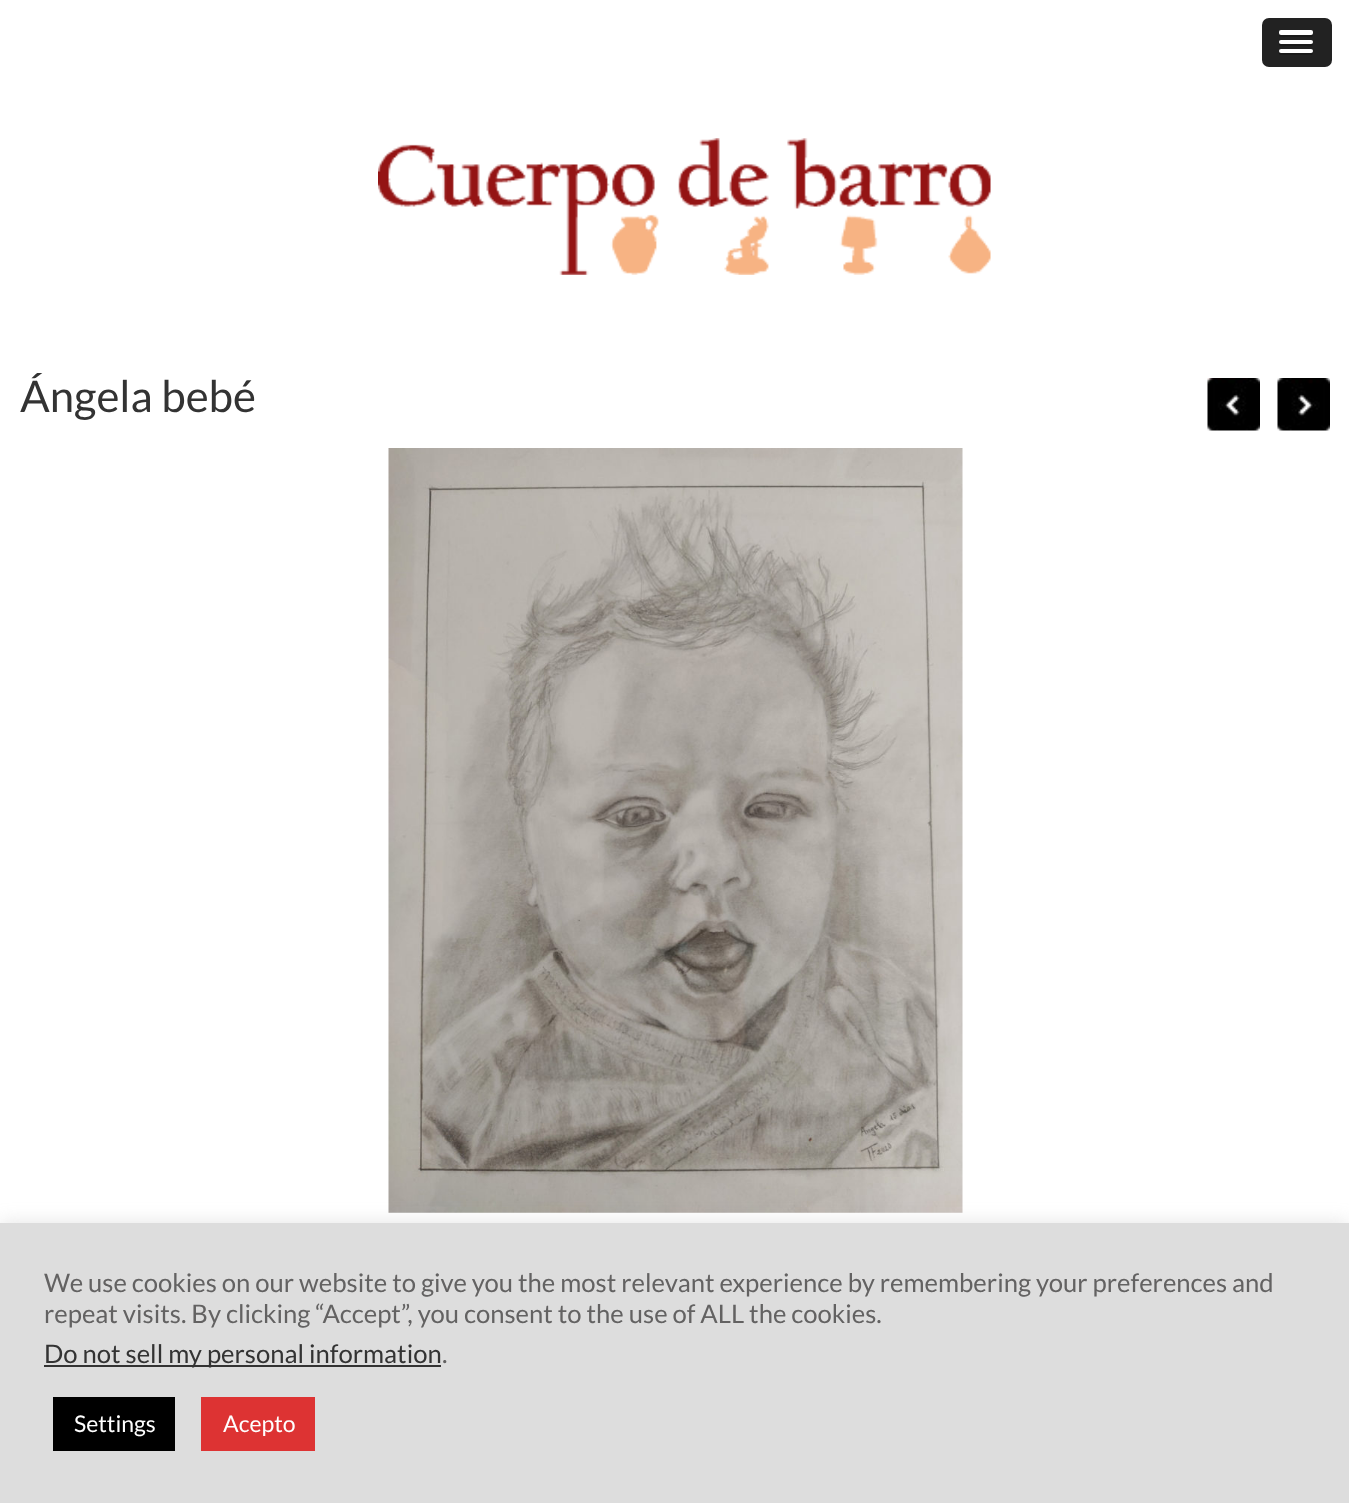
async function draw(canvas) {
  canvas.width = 1349
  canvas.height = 1503
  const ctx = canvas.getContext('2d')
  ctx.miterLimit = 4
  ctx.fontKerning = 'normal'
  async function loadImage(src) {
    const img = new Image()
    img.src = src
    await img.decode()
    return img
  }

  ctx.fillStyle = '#fff'
  ctx.fillRect(0, 0, 1349, 1503)
  ctx.fillStyle = '#222'
  ctx.beginPath()
  ctx.roundRect(1262, 18, 70, 49, 7)
  ctx.fill()
  ctx.fillStyle = '#1a1a1a'
  ctx.beginPath()
  ctx.moveTo(1279, 33)
  ctx.lineTo(1279, 35)
  ctx.bezierCurveTo(1279, 38, 1284.5, 37, 1286, 37)
  ctx.lineTo(1306, 37)
  ctx.bezierCurveTo(1307.5, 37, 1313, 38, 1313, 35)
  ctx.bezierCurveTo(1313, 34, 1313, 33.5, 1312.5, 32.5)
  ctx.bezierCurveTo(1312.5, 36, 1308.5, 35, 1306, 35)
  ctx.lineTo(1286, 35)
  ctx.bezierCurveTo(1284.5, 35, 1279, 36, 1279, 33)
  ctx.closePath()
  ctx.fill()
  ctx.fillStyle = '#fff'
  ctx.beginPath()
  ctx.roundRect(1279, 30, 34, 5, 2)
  ctx.fill()
  ctx.fillStyle = '#1a1a1a'
  ctx.beginPath()
  ctx.moveTo(1279.5, 43)
  ctx.lineTo(1279, 44.5)
  ctx.bezierCurveTo(1279.5, 47, 1285, 46, 1286, 46)
  ctx.lineTo(1306, 46)
  ctx.bezierCurveTo(1307, 46, 1312.5, 47, 1313, 44.5)
  ctx.bezierCurveTo(1313, 43.5, 1313, 43, 1312.5, 42.5)
  ctx.bezierCurveTo(1312, 43, 1311.5, 43.5, 1311, 43.5)
  ctx.lineTo(1280.5, 43.5)
  ctx.closePath()
  ctx.fill()
  ctx.fillStyle = '#fff'
  ctx.beginPath()
  ctx.roundRect(1279, 40, 34, 4, 2)
  ctx.fill()
  ctx.fillStyle = '#1a1a1a'
  ctx.beginPath()
  ctx.moveTo(1279.5, 51.5)
  ctx.bezierCurveTo(1279, 52, 1279, 53, 1279, 53.5)
  ctx.bezierCurveTo(1279, 54, 1279.5, 54.5, 1280, 55)
  ctx.lineTo(1311, 55)
  ctx.bezierCurveTo(1313, 55, 1313.5, 52.5, 1312.5, 51.5)
  ctx.bezierCurveTo(1312, 52, 1311.5, 52.5, 1311, 52.5)
  ctx.lineTo(1281, 52.5)
  ctx.closePath()
  ctx.fill()
  ctx.fillStyle = '#fff'
  ctx.beginPath()
  ctx.roundRect(1279, 49, 34, 4, 2)
  ctx.fill()
  ctx.drawImage(await loadImage('image0.png'), 378, 138, 613, 137)
  ctx.font = '43.75px Lato'
  ctx.fillStyle = '#333'
  ctx.fillText('Ángela bebé', 20, 412)
  ctx.drawImage(await loadImage('image1.png'), 1207, 378, 53, 53)
  ctx.drawImage(await loadImage('image2.png'), 1277, 378, 53, 53)
  ctx.drawImage(await loadImage('image3.png'), 388, 448, 575, 765)
  ctx.fillStyle = '#acabab4d'
  ctx.filter = 'blur(9px)'
  ctx.beginPath()
  ctx.rect(0, 1222, 1349, 280)
  ctx.fill()
  ctx.filter = 'none'
  ctx.fillStyle = '#ddd'
  ctx.fillRect(0, 1223, 1349, 280)
  ctx.font = '25.65px Lato'
  ctx.fillStyle = '#636262'
  ctx.fillText('We use cookies on our website to give you the most relevant experience by remembering your preferences and', 44, 1292)
  ctx.fillText('repeat visits. By clicking “Accept”, you consent to the use of ALL the cookies.', 44, 1323)
  ctx.fillStyle = '#333'
  ctx.fillRect(44, 1365, 397, 2)
  ctx.fillText('Do not sell my personal information', 44, 1363)
  ctx.fillStyle = '#636262'
  ctx.fillText('.', 442, 1363)
  ctx.fillStyle = '#000'
  ctx.fillRect(53, 1397, 122, 54)
  ctx.font = '23px Lato'
  ctx.fillStyle = '#fff'
  ctx.fillText('Settings', 74, 1432)
  ctx.fillStyle = '#d33'
  ctx.fillRect(201, 1397, 114, 54)
  ctx.fillStyle = '#fff'
  ctx.fillText('Acepto', 223, 1432)
}

draw(document.querySelector('canvas'))
